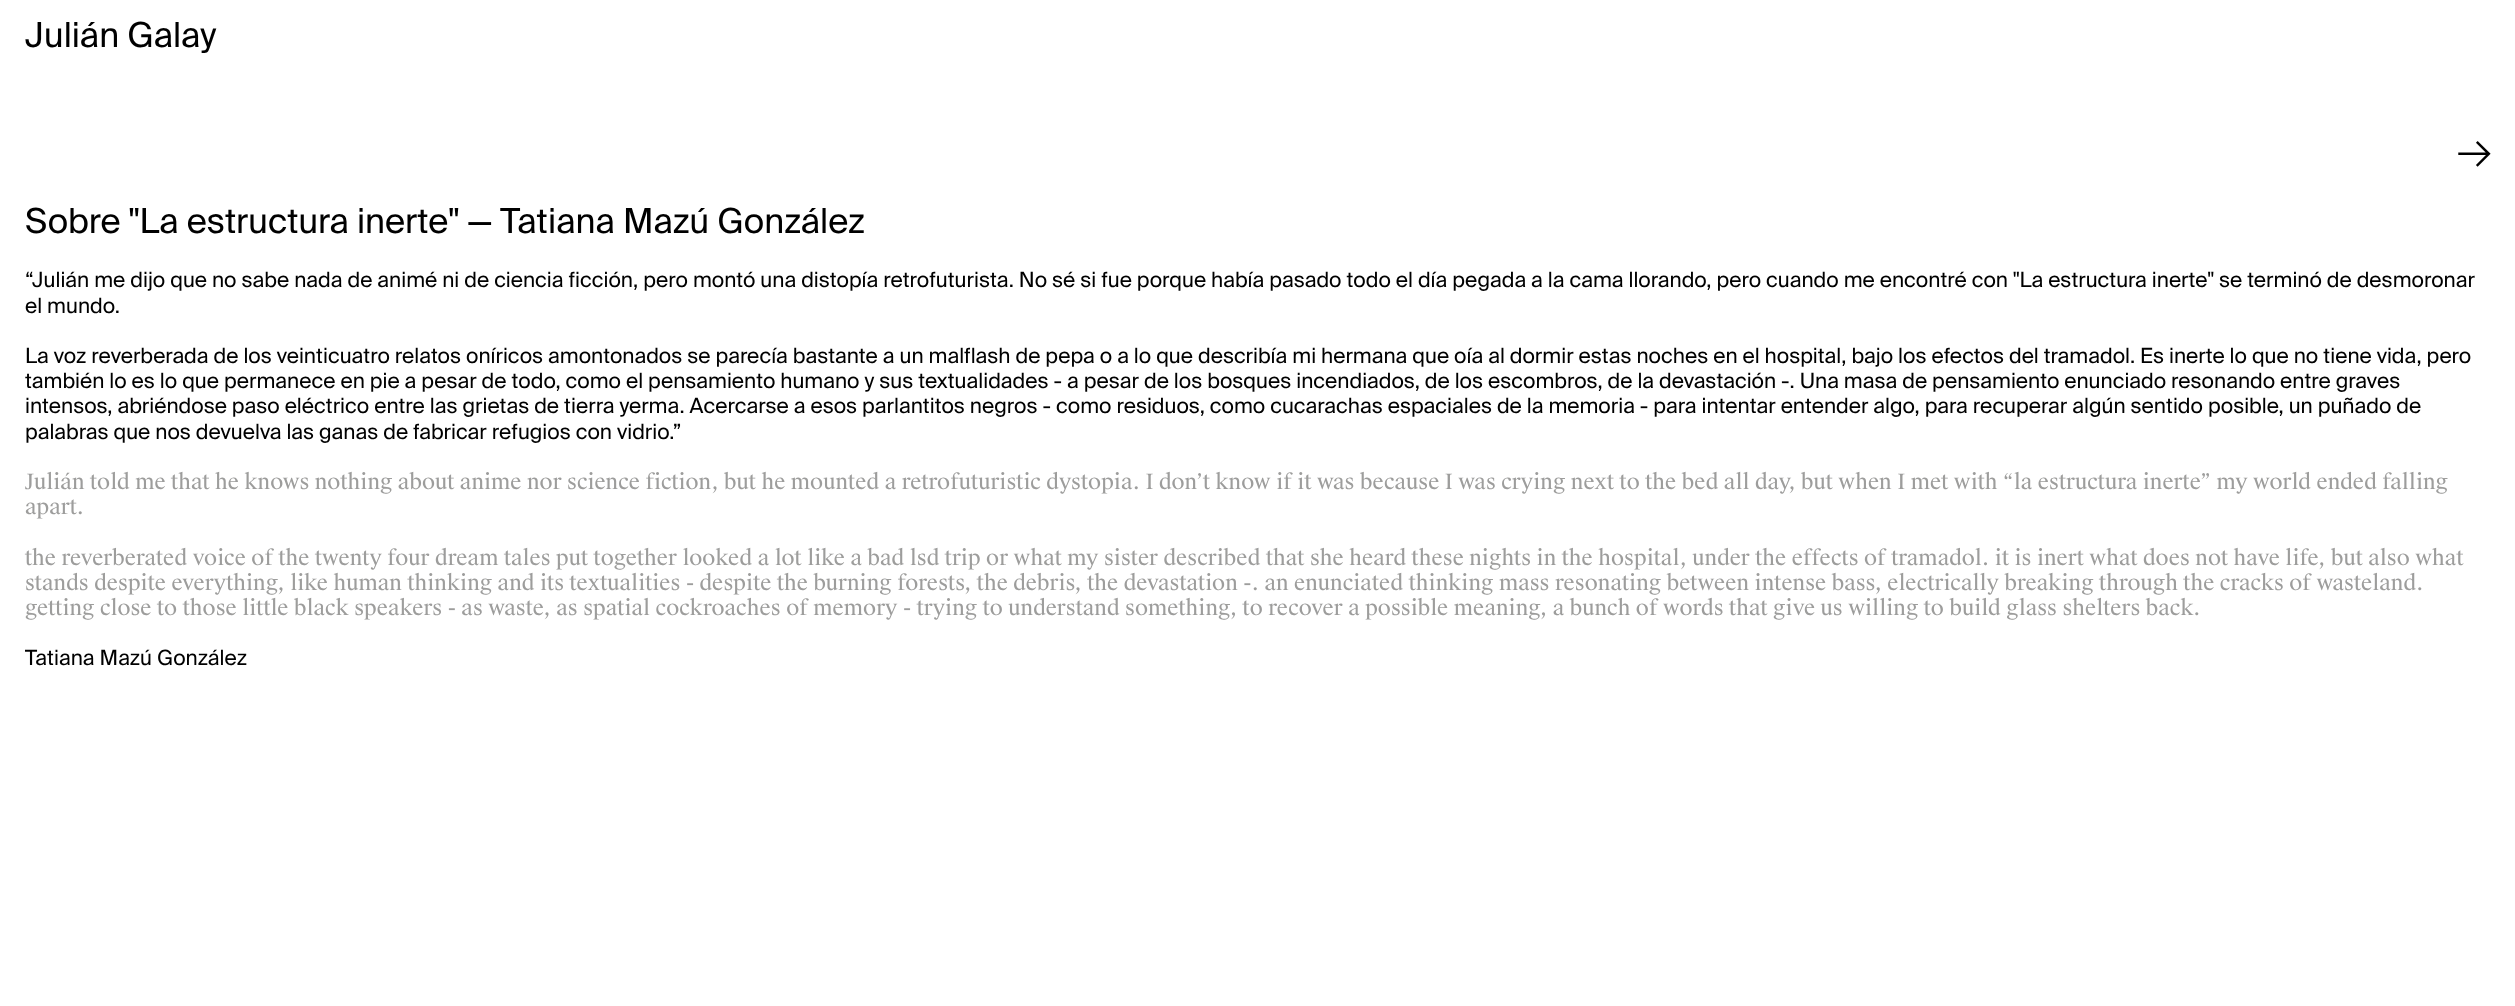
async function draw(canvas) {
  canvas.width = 2515
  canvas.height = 1006
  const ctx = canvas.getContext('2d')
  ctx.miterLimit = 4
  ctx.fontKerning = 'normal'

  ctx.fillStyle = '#fff'
  ctx.fillRect(0, 0, 2515, 1006)
  ctx.font = '34.5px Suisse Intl'
  ctx.fillStyle = '#000'
  ctx.fillText('Julián Galay', 25, 47)
  ctx.font = '42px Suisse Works'
  ctx.fillText('→', 2457, 165)
  ctx.font = '34.5px Suisse Intl'
  ctx.fillText('Sobre "La estructura inerte" — Tatiana Mazú González', 25, 233)
  ctx.font = '21px Suisse Intl'
  ctx.fillText('“Julián me dijo que no sabe nada de animé ni de ciencia ficción, pero montó una distopía retrofuturista. No sé si fue porque había pasado todo el día pegada a la cama llorando, pero cuando me encontré con "La estructura inerte" se terminó de desmoronar', 25, 287)
  ctx.fillText('el mundo.', 25, 313)
  ctx.fillText('La voz reverberada de los veinticuatro relatos oníricos amontonados se parecía bastante a un malflash de pepa o a lo que describía mi hermana que oía al dormir estas noches en el hospital, bajo los efectos del tramadol. Es inerte lo que no tiene vida, pero', 25, 363)
  ctx.fillText('también lo es lo que permanece en pie a pesar de todo, como el pensamiento humano y sus textualidades - a pesar de los bosques incendiados, de los escombros, de la devastación -. Una masa de pensamiento enunciado resonando entre graves', 25, 388)
  ctx.fillText('intensos, abriéndose paso eléctrico entre las grietas de tierra yerma. Acercarse a esos parlantitos negros - como residuos, como cucarachas espaciales de la memoria - para intentar entender algo, para recuperar algún sentido posible, un puñado de', 25, 413)
  ctx.fillText('palabras que nos devuelva las ganas de fabricar refugios con vidrio.”', 25, 439)
  ctx.font = '21px Suisse Works'
  ctx.fillStyle = '#9d9d9c'
  ctx.fillText('Julián told me that he knows nothing about anime nor science fiction, but he mounted a retrofuturistic dystopia. I don’t know if it was because I was crying next to the bed all day, but when I met with “la estructura inerte” my world ended falling', 25, 489)
  ctx.fillText('apart.', 25, 514)
  ctx.fillText('the reverberated voice of the twenty four dream tales put together looked a lot like a bad lsd trip or what my sister described that she heard these nights in the hospital, under the effects of tramadol. it is inert what does not have life, but also what', 25, 565)
  ctx.fillText('stands despite everything, like human thinking and its textualities - despite the burning forests, the debris, the devastation -. an enunciated thinking mass resonating between intense bass, electrically breaking through the cracks of wasteland.', 25, 590)
  ctx.fillText('getting close to those little black speakers - as waste, as spatial cockroaches of memory - trying to understand something, to recover a possible meaning, a bunch of words that give us willing to build glass shelters back.', 25, 615)
  ctx.font = '21px Suisse Intl'
  ctx.fillStyle = '#000'
  ctx.fillText('Tatiana Mazú González', 25, 665)
}

draw(document.querySelector('canvas'))
